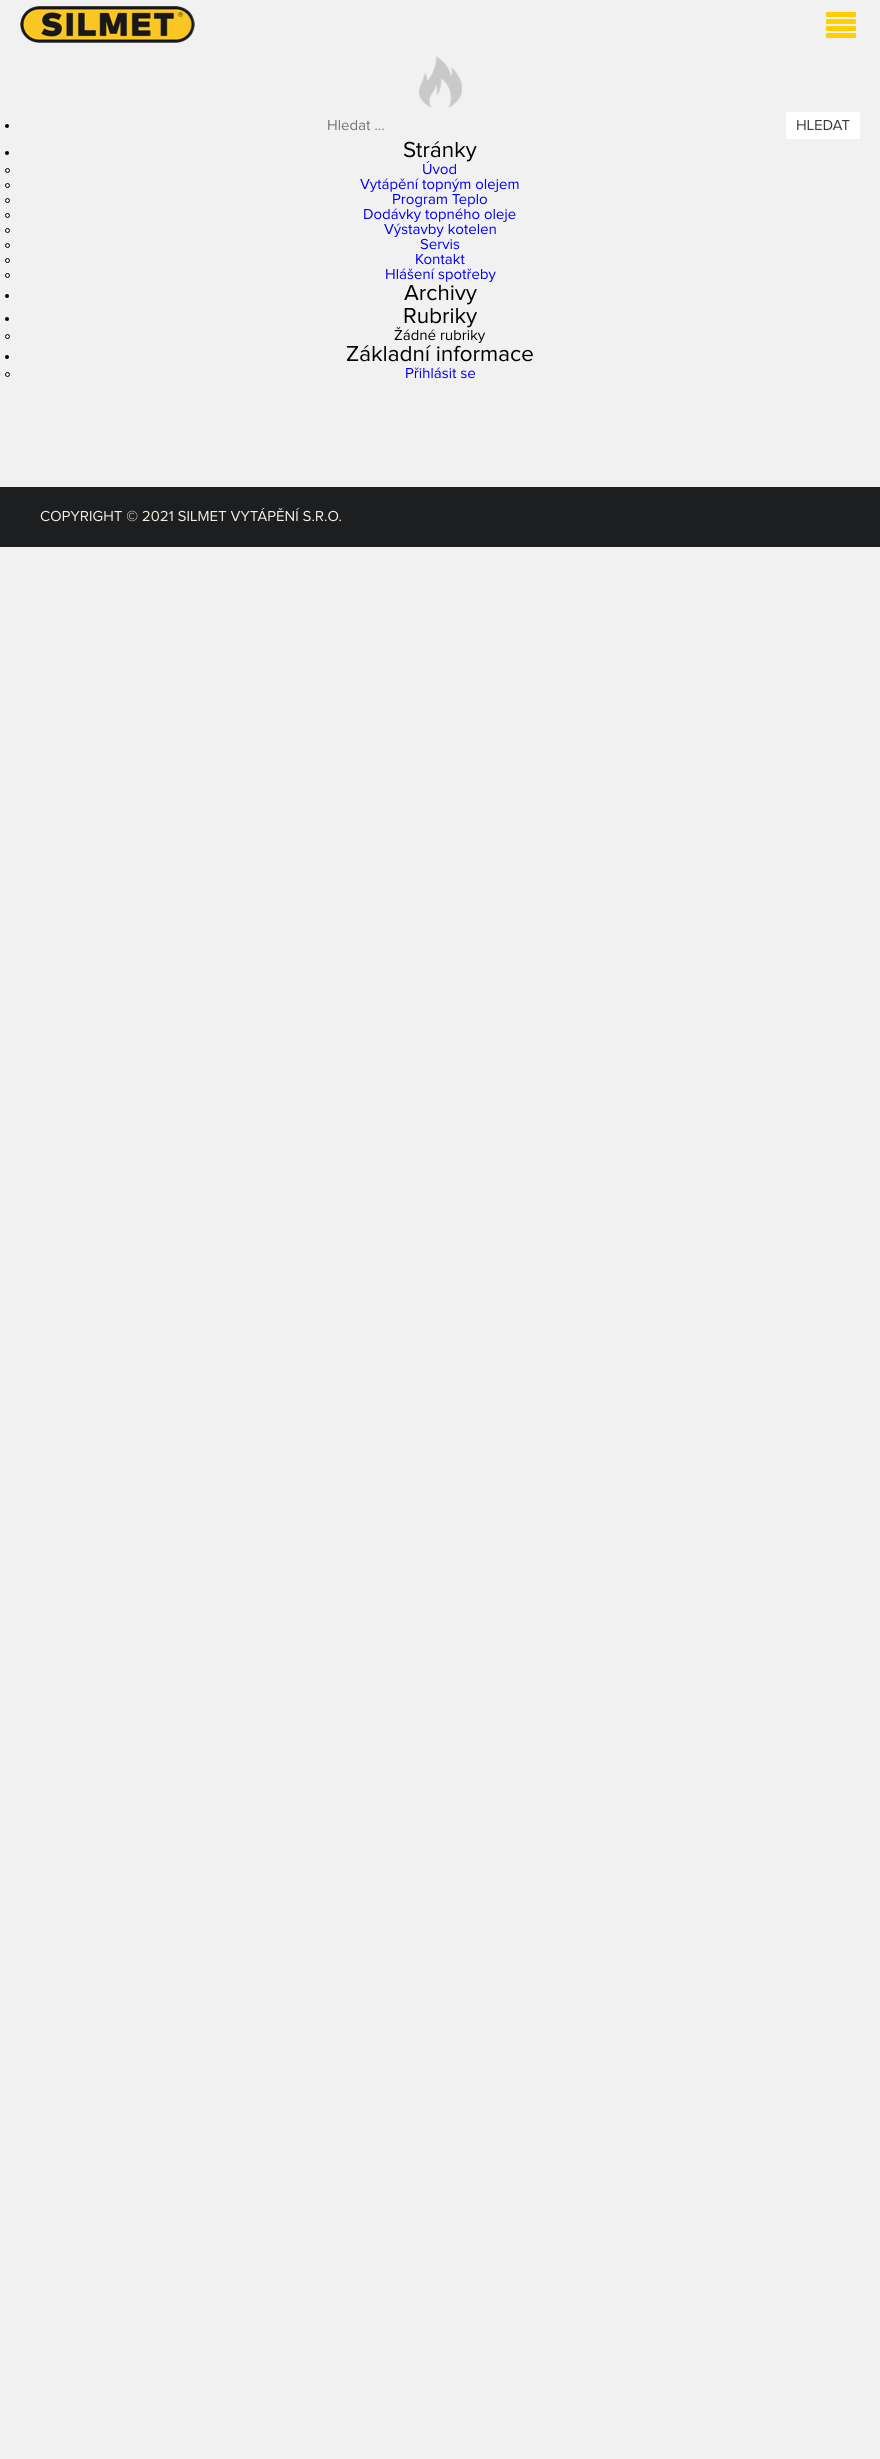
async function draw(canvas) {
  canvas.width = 880
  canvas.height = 2459
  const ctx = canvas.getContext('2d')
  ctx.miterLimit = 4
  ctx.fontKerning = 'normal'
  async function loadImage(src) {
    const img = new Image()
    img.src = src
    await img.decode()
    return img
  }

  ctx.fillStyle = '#f1f1f1'
  ctx.fillRect(0, 0, 880, 2459)
  ctx.drawImage(await loadImage('image0.png'), 20, 6, 175, 37)
  ctx.fillStyle = '#ffcf00'
  ctx.beginPath()
  ctx.roundRect(826, 12, 30, 5, 1)
  ctx.fill()
  ctx.beginPath()
  ctx.roundRect(826, 19, 30, 5, 1)
  ctx.fill()
  ctx.beginPath()
  ctx.roundRect(826, 26, 30, 5, 1)
  ctx.fill()
  ctx.beginPath()
  ctx.roundRect(826, 33, 30, 5, 1)
  ctx.fill()
  ctx.drawImage(await loadImage('image1.png'), 419, 56, 43, 52)
  ctx.fillStyle = '#000'
  ctx.beginPath()
  ctx.arc(7, 126, 2, 0, 2 * Math.PI)
  ctx.fill()
  ctx.drawImage(await loadImage('image2.png'), 328, 120, 56, 11)
  ctx.fillStyle = '#fff'
  ctx.fillRect(786, 112, 74, 27)
  ctx.drawImage(await loadImage('image3.png'), 797, 120, 53, 10)
  ctx.fillStyle = '#000'
  ctx.beginPath()
  ctx.arc(7, 153, 2, 0, 2 * Math.PI)
  ctx.fill()
  ctx.drawImage(await loadImage('image4.png'), 403, 141, 74, 21)
  ctx.beginPath()
  ctx.arc(7.5, 170.5, 2, 0, 2 * Math.PI)
  ctx.strokeStyle = '#000'
  ctx.stroke()
  ctx.drawImage(await loadImage('image5.png'), 423, 160, 33, 15)
  ctx.beginPath()
  ctx.arc(7.5, 185.5, 2, 0, 2 * Math.PI)
  ctx.stroke()
  ctx.drawImage(await loadImage('image6.png'), 360, 178, 159, 14)
  ctx.beginPath()
  ctx.arc(7.5, 200.5, 2, 0, 2 * Math.PI)
  ctx.stroke()
  ctx.drawImage(await loadImage('image7.png'), 393, 194, 94, 13)
  ctx.beginPath()
  ctx.arc(7.5, 215.5, 2, 0, 2 * Math.PI)
  ctx.stroke()
  ctx.drawImage(await loadImage('image8.png'), 364, 208, 152, 14)
  ctx.beginPath()
  ctx.arc(7.5, 230.5, 2, 0, 2 * Math.PI)
  ctx.stroke()
  ctx.drawImage(await loadImage('image9.png'), 384, 223, 112, 14)
  ctx.beginPath()
  ctx.arc(7.5, 245.5, 2, 0, 2 * Math.PI)
  ctx.stroke()
  ctx.drawImage(await loadImage('image10.png'), 420, 238, 40, 12)
  ctx.beginPath()
  ctx.arc(7.5, 260.5, 2, 0, 2 * Math.PI)
  ctx.stroke()
  ctx.drawImage(await loadImage('image11.png'), 416, 254, 49, 11)
  ctx.beginPath()
  ctx.arc(7.5, 275.5, 2, 0, 2 * Math.PI)
  ctx.stroke()
  ctx.drawImage(await loadImage('image12.png'), 386, 268, 110, 14)
  ctx.beginPath()
  ctx.arc(7, 296, 2, 0, 2 * Math.PI)
  ctx.fill()
  ctx.drawImage(await loadImage('image13.png'), 404, 285, 73, 20)
  ctx.beginPath()
  ctx.arc(7, 319, 2, 0, 2 * Math.PI)
  ctx.fill()
  ctx.drawImage(await loadImage('image14.png'), 404, 308, 73, 20)
  ctx.beginPath()
  ctx.arc(7.5, 336.5, 2, 0, 2 * Math.PI)
  ctx.stroke()
  ctx.drawImage(await loadImage('image15.png'), 394, 326, 91, 17)
  ctx.beginPath()
  ctx.arc(7, 357, 2, 0, 2 * Math.PI)
  ctx.fill()
  ctx.drawImage(await loadImage('image16.png'), 347, 345, 186, 17)
  ctx.beginPath()
  ctx.arc(7.5, 374.5, 2, 0, 2 * Math.PI)
  ctx.stroke()
  ctx.drawImage(await loadImage('image17.png'), 406, 367, 70, 12)
  ctx.fillStyle = '#1d1e1f'
  ctx.fillRect(0, 487, 880, 60)
  ctx.drawImage(await loadImage('image18.png'), 40, 507, 302, 15)
}

draw(document.querySelector('canvas'))
